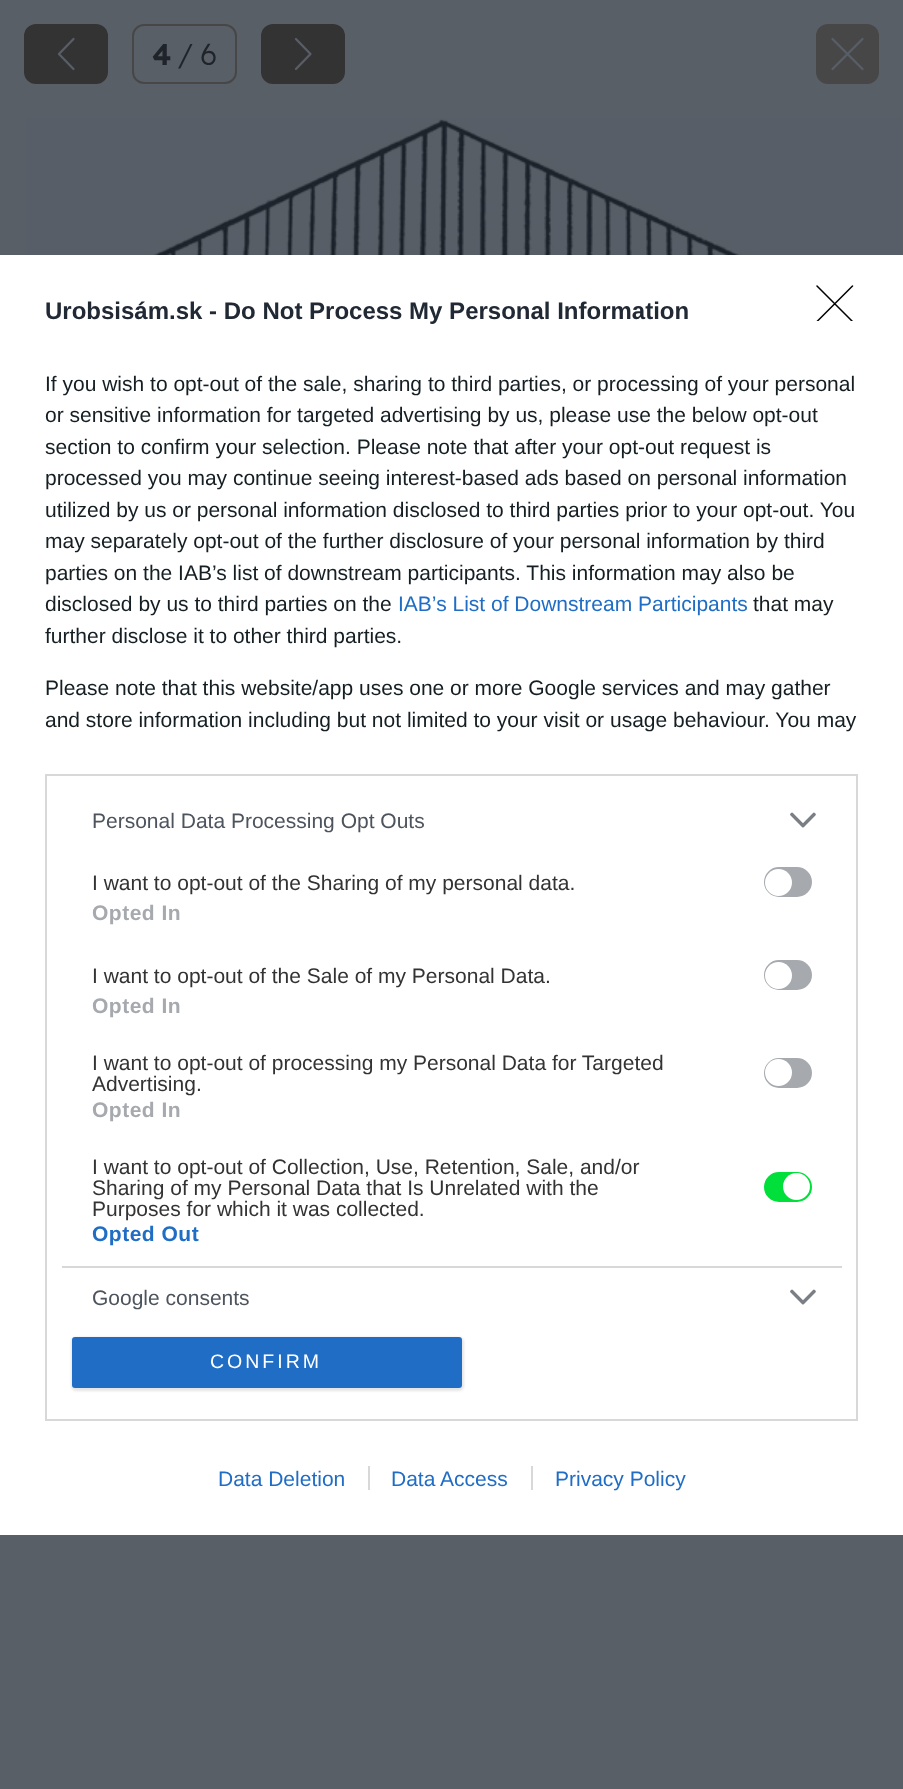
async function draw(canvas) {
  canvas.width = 903
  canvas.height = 1789
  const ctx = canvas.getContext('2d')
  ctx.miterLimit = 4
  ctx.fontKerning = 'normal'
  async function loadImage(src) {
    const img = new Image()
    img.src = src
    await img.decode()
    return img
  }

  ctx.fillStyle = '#595f67'
  ctx.fillRect(0, 0, 903, 1789)
  ctx.fillStyle = '#343333'
  ctx.beginPath()
  ctx.roundRect(24, 24, 84, 60, 12)
  ctx.fill()
  ctx.drawImage(await loadImage('image0.png'), 57, 37, 18, 34)
  ctx.beginPath()
  ctx.roundRect(133, 25, 103, 58, 11)
  ctx.strokeStyle = '#474748'
  ctx.lineWidth = 2
  ctx.stroke()
  ctx.font = '600 30px Readex Pro'
  ctx.fillStyle = '#1f242b'
  ctx.fillText('4', 152, 65)
  ctx.font = '300 30px Readex Pro'
  ctx.fillText('/', 177, 65)
  ctx.fillText('6', 200, 65)
  ctx.fillStyle = '#343333'
  ctx.beginPath()
  ctx.roundRect(261, 24, 84, 60, 12)
  ctx.fill()
  ctx.drawImage(await loadImage('image1.png'), 294, 37, 18, 34)
  ctx.fillStyle = '#474748'
  ctx.beginPath()
  ctx.roundRect(816, 24, 63, 60, 12)
  ctx.fill()
  ctx.drawImage(await loadImage('image2.png'), 831, 37, 33, 34)
  ctx.drawImage(await loadImage('image3.png'), 26, 118, 876, 137)
  ctx.fillStyle = '#fff'
  ctx.fillRect(0, 255, 903, 1280)
  ctx.save()
  ctx.beginPath()
  ctx.rect(816, 285, 38, 36)
  ctx.clip()
  ctx.beginPath()
  ctx.moveTo(817, 286)
  ctx.lineTo(852.5, 321.5)
  ctx.moveTo(852.5, 286)
  ctx.lineTo(817, 321.5)
  ctx.strokeStyle = '#000'
  ctx.lineWidth = 1.5
  ctx.lineCap = 'round'
  ctx.lineJoin = 'round'
  ctx.stroke()
  ctx.restore()
  ctx.font = 'bold 24px Liberation Sans'
  ctx.fillStyle = '#212934'
  ctx.fillText('Urobsisám.sk - Do Not Process My Personal Information', 45, 319)
  ctx.font = '21px Liberation Sans'
  ctx.fillStyle = '#141e23'
  ctx.fillText('If you wish to opt-out of the sale, sharing to third parties, or processing of your personal', 45, 391)
  ctx.fillText('or sensitive information for targeted advertising by us, please use the below opt-out', 45, 422)
  ctx.fillText('section to confirm your selection. Please note that after your opt-out request is', 45, 454)
  ctx.fillText('processed you may continue seeing interest-based ads based on personal information', 45, 485)
  ctx.fillText('utilized by us or personal information disclosed to third parties prior to your opt-out. You', 45, 517)
  ctx.fillText('may separately opt-out of the further disclosure of your personal information by third', 45, 548)
  ctx.fillText('parties on the IAB’s list of downstream participants. This information may also be', 45, 580)
  ctx.fillText('disclosed by us to third parties on the', 45, 611)
  ctx.fillStyle = '#206dc5'
  ctx.fillText('IAB’s List of Downstream Participants', 398, 611)
  ctx.fillStyle = '#141e23'
  ctx.fillText('that may', 753, 611)
  ctx.fillText('further disclose it to other third parties.', 45, 643)
  ctx.fillText('Please note that this website/app uses one or more Google services and may gather', 45, 695)
  ctx.fillText('and store information including but not limited to your visit or usage behaviour. You may', 45, 727)
  ctx.strokeStyle = '#d8d8d8'
  ctx.strokeRect(46, 775, 811, 645)
  ctx.fillStyle = '#d8d8d8'
  ctx.fillRect(62, 1266, 780, 2)
  ctx.fillStyle = '#4d545d'
  ctx.fillText('Personal Data Processing Opt Outs', 92, 828)
  ctx.drawImage(await loadImage('image4.png'), 790, 812, 26, 16)
  ctx.fillStyle = '#333'
  ctx.fillText('I want to opt-out of the Sharing of my personal data.', 92, 890)
  ctx.fillStyle = '#a6a9ae'
  ctx.beginPath()
  ctx.roundRect(765, 868, 46, 28, 14)
  ctx.fill()
  ctx.strokeStyle = '#a6a9ae'
  ctx.stroke()
  ctx.fillStyle = '#fff'
  ctx.beginPath()
  ctx.arc(778.5, 882.5, 13.5, 0, 2 * Math.PI)
  ctx.fill()
  ctx.letterSpacing = '0.5px'
  ctx.font = 'bold 21px Liberation Sans'
  ctx.fillStyle = '#a6a9ae'
  ctx.fillText('Opted In', 92, 920)
  ctx.letterSpacing = '0px'
  ctx.font = '21px Liberation Sans'
  ctx.fillStyle = '#333'
  ctx.fillText('I want to opt-out of the Sale of my Personal Data.', 92, 983)
  ctx.fillStyle = '#a6a9ae'
  ctx.beginPath()
  ctx.roundRect(765, 961, 46, 28, 14)
  ctx.fill()
  ctx.stroke()
  ctx.fillStyle = '#fff'
  ctx.beginPath()
  ctx.arc(778.5, 975.5, 13.5, 0, 2 * Math.PI)
  ctx.fill()
  ctx.letterSpacing = '0.5px'
  ctx.font = 'bold 21px Liberation Sans'
  ctx.fillStyle = '#a6a9ae'
  ctx.fillText('Opted In', 92, 1013)
  ctx.letterSpacing = '0px'
  ctx.font = '21px Liberation Sans'
  ctx.fillStyle = '#333'
  ctx.fillText('I want to opt-out of processing my Personal Data for Targeted', 92, 1070)
  ctx.fillText('Advertising.', 92, 1091)
  ctx.fillStyle = '#a6a9ae'
  ctx.beginPath()
  ctx.roundRect(765, 1059, 46, 28, 14)
  ctx.fill()
  ctx.stroke()
  ctx.fillStyle = '#fff'
  ctx.beginPath()
  ctx.arc(778.5, 1072.5, 13.5, 0, 2 * Math.PI)
  ctx.fill()
  ctx.letterSpacing = '0.5px'
  ctx.font = 'bold 21px Liberation Sans'
  ctx.fillStyle = '#a6a9ae'
  ctx.fillText('Opted In', 92, 1117)
  ctx.letterSpacing = '0px'
  ctx.font = '21px Liberation Sans'
  ctx.fillStyle = '#333'
  ctx.fillText('I want to opt-out of Collection, Use, Retention, Sale, and/or', 92, 1174)
  ctx.fillText('Sharing of my Personal Data that Is Unrelated with the', 92, 1195)
  ctx.fillText('Purposes for which it was collected.', 92, 1216)
  ctx.fillStyle = '#01df3a'
  ctx.beginPath()
  ctx.roundRect(765, 1173, 46, 28, 14)
  ctx.fill()
  ctx.strokeStyle = '#01df3a'
  ctx.stroke()
  ctx.fillStyle = '#fff'
  ctx.beginPath()
  ctx.arc(796.5, 1186.5, 13.5, 0, 2 * Math.PI)
  ctx.fill()
  ctx.letterSpacing = '0.5px'
  ctx.font = 'bold 21px Liberation Sans'
  ctx.fillStyle = '#206dc5'
  ctx.fillText('Opted Out', 92, 1241)
  ctx.letterSpacing = '0px'
  ctx.font = '21px Liberation Sans'
  ctx.fillStyle = '#4d545d'
  ctx.fillText('Google consents', 92, 1305)
  ctx.drawImage(await loadImage('image4.png'), 790, 1289, 26, 16)
  ctx.fillStyle = '#0000001a'
  ctx.filter = 'blur(1px)'
  ctx.beginPath()
  ctx.roundRect(71, 1337, 393, 54, 5)
  ctx.fill()
  ctx.filter = 'none'
  ctx.fillStyle = '#206dc5'
  ctx.beginPath()
  ctx.roundRect(72, 1337, 390, 51, 3)
  ctx.fill()
  ctx.letterSpacing = '3px'
  ctx.font = '19.5px Liberation Sans'
  ctx.fillStyle = '#fff'
  ctx.fillText('CONFIRM', 210, 1368)
  ctx.letterSpacing = '0px'
  ctx.font = '21px Liberation Sans'
  ctx.fillStyle = '#206dc5'
  ctx.fillText('Data Deletion', 218, 1486)
  ctx.fillText('Data Access', 391, 1486)
  ctx.fillStyle = '#d8d8d8'
  ctx.fillRect(368, 1466, 2, 24)
  ctx.fillStyle = '#206dc5'
  ctx.fillText('Privacy Policy', 555, 1486)
  ctx.fillStyle = '#d8d8d8'
  ctx.fillRect(531, 1466, 2, 24)
}

draw(document.querySelector('canvas'))
